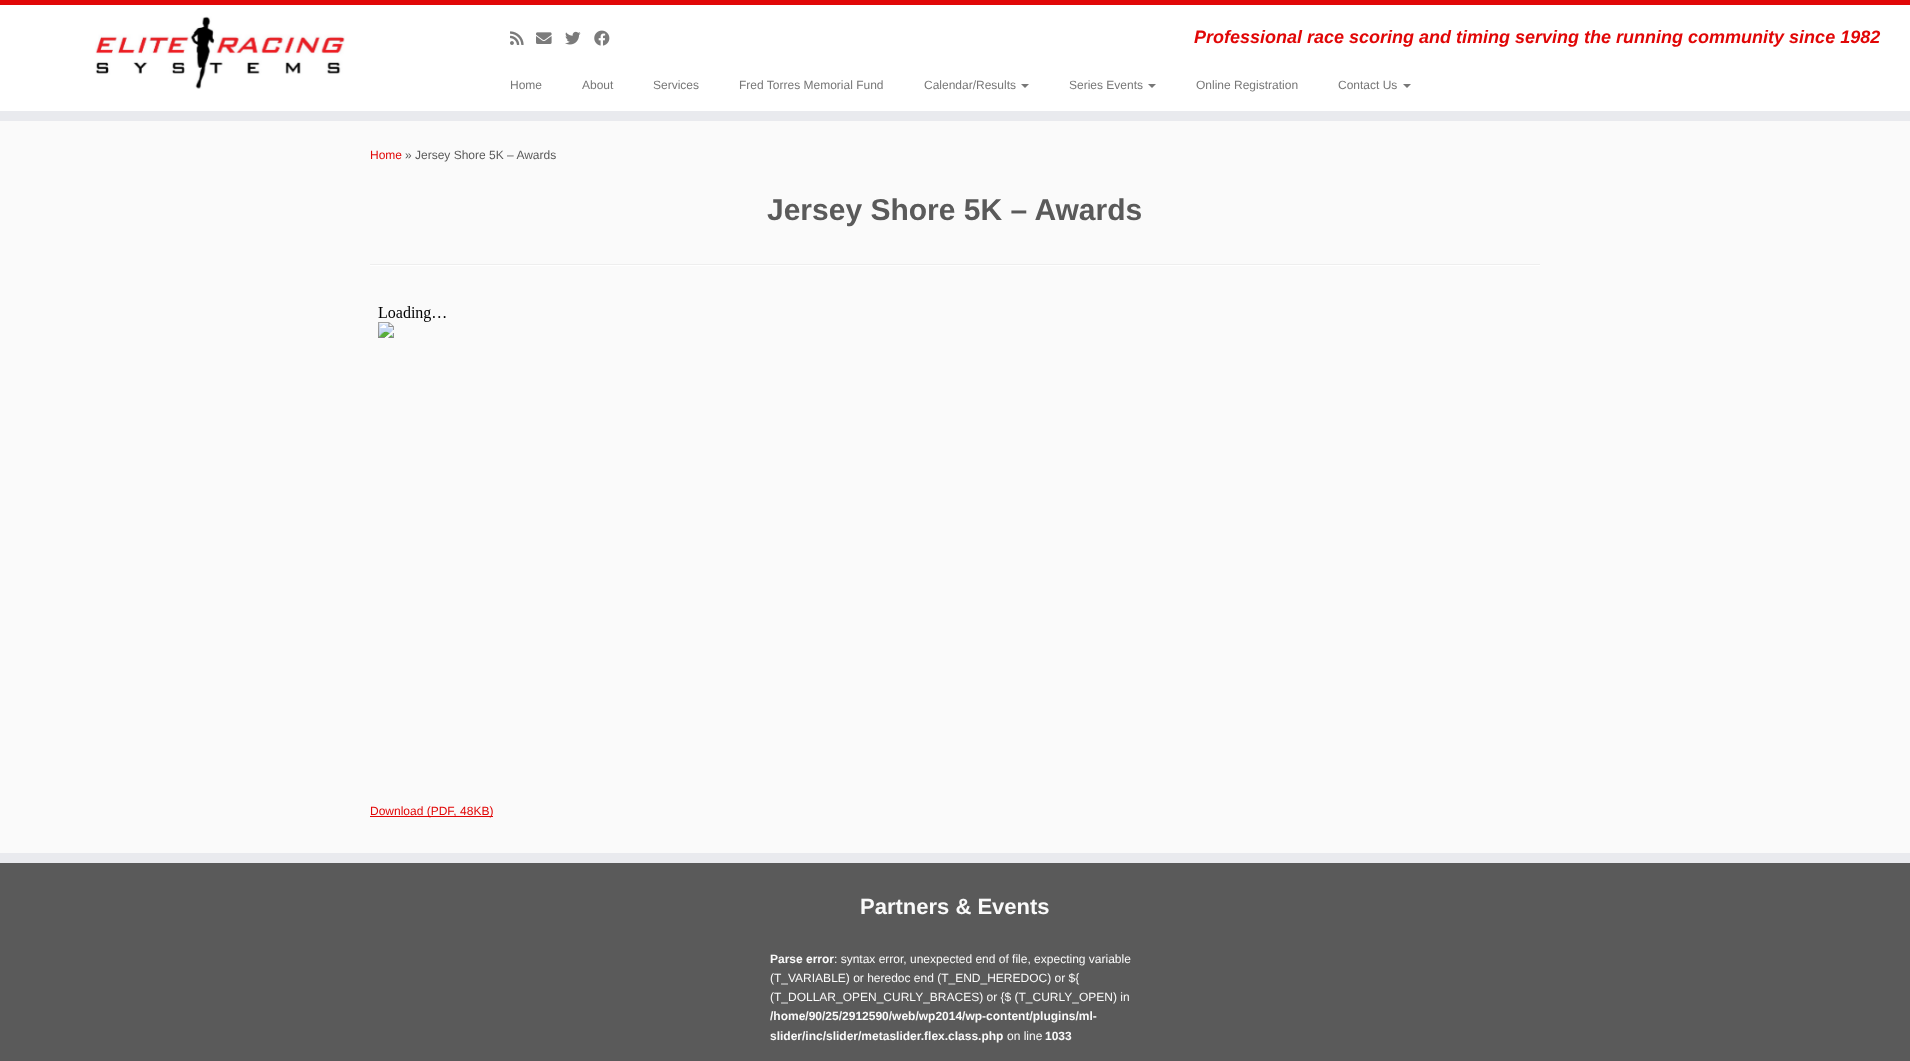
async function draw(canvas) {
  canvas.width = 1910
  canvas.height = 1061
  const ctx = canvas.getContext('2d')
  ctx.miterLimit = 4
  ctx.fontKerning = 'normal'
  async function loadImage(src) {
    const img = new Image()
    img.src = src
    await img.decode()
    return img
  }

  ctx.fillStyle = '#fafafa'
  ctx.fillRect(0, 0, 1910, 1061)
  ctx.fillStyle = '#fff'
  ctx.fillRect(0, 5, 1910, 106)
  ctx.fillStyle = '#e10707'
  ctx.fillRect(0, 0, 1910, 5)
  ctx.fillStyle = '#e9eaee'
  ctx.fillRect(0, 111, 1910, 10)
  ctx.drawImage(await loadImage('image0.png'), 95, 16, 250, 73)
  ctx.drawImage(await loadImage('image1.png'), 510, 31, 14, 14)
  ctx.drawImage(await loadImage('image2.png'), 536, 32, 16, 12)
  ctx.drawImage(await loadImage('image3.png'), 565, 31, 16, 14)
  ctx.drawImage(await loadImage('image4.png'), 594, 30, 16, 16)
  ctx.font = 'italic bold 18px Liberation Sans'
  ctx.fillStyle = '#e10707'
  ctx.fillText('Professional race scoring and timing serving the running community since 1982', 1194, 43)
  ctx.font = '12px Liberation Sans'
  ctx.fillStyle = '#777'
  ctx.fillText('Home', 510, 89)
  ctx.fillText('About', 582, 89)
  ctx.fillText('Services', 653, 89)
  ctx.fillText('Fred Torres Memorial Fund', 739, 89)
  ctx.fillText('Calendar/Results', 924, 89)
  ctx.beginPath()
  ctx.moveTo(1021, 84)
  ctx.lineTo(1029, 84)
  ctx.lineTo(1025, 88)
  ctx.closePath()
  ctx.fill()
  ctx.fillText('Series Events', 1069, 89)
  ctx.beginPath()
  ctx.moveTo(1148, 84)
  ctx.lineTo(1156, 84)
  ctx.lineTo(1152, 88)
  ctx.closePath()
  ctx.fill()
  ctx.fillText('Online Registration', 1196, 89)
  ctx.fillText('Contact Us', 1338, 89)
  ctx.beginPath()
  ctx.moveTo(1403, 84)
  ctx.lineTo(1411, 84)
  ctx.lineTo(1407, 88)
  ctx.closePath()
  ctx.fill()
  ctx.fillStyle = '#e10707'
  ctx.fillText('Home', 370, 159)
  ctx.fillStyle = '#5a5a5a'
  ctx.fillText('» Jersey Shore 5K – Awards', 405, 159)
  ctx.font = 'bold 30px Liberation Sans'
  ctx.fillText('Jersey Shore 5K – Awards', 767, 220)
  ctx.fillStyle = '#eee'
  ctx.fillRect(370, 264, 1170, 1)
  ctx.fillStyle = '#fff'
  ctx.fillRect(370, 265, 1170, 1)
  ctx.drawImage(await loadImage('image5.png'), 378, 306, 68, 32)
  ctx.fillStyle = '#e10707'
  ctx.fillRect(370, 816, 123, 1)
  ctx.font = '12px Liberation Sans'
  ctx.fillText('Download (PDF, 48KB)', 370, 815)
  ctx.fillStyle = '#5a5a5a'
  ctx.fillRect(0, 863, 1910, 198)
  ctx.fillStyle = '#e9eaee'
  ctx.fillRect(0, 853, 1910, 10)
  ctx.font = 'bold 22px Liberation Sans'
  ctx.fillStyle = '#fafafa'
  ctx.fillText('Partners & Events', 860, 914)
  ctx.font = 'bold 12px Liberation Sans'
  ctx.fillText('Parse error', 770, 963)
  ctx.font = '12px Liberation Sans'
  ctx.fillText(': syntax error, unexpected end of file, expecting variable', 834, 963)
  ctx.fillText('(T_VARIABLE) or heredoc end (T_END_HEREDOC) or ${', 770, 982)
  ctx.fillText('(T_DOLLAR_OPEN_CURLY_BRACES) or {$ (T_CURLY_OPEN) in', 770, 1001)
  ctx.font = 'bold 12px Liberation Sans'
  ctx.fillText('/home/90/25/2912590/web/wp2014/wp-content/plugins/ml-', 770, 1020)
  ctx.fillText('slider/inc/slider/metaslider.flex.class.php', 770, 1040)
  ctx.font = '12px Liberation Sans'
  ctx.fillText('on line', 1007, 1040)
  ctx.font = 'bold 12px Liberation Sans'
  ctx.fillText('1033', 1045, 1040)
}

draw(document.querySelector('canvas'))
